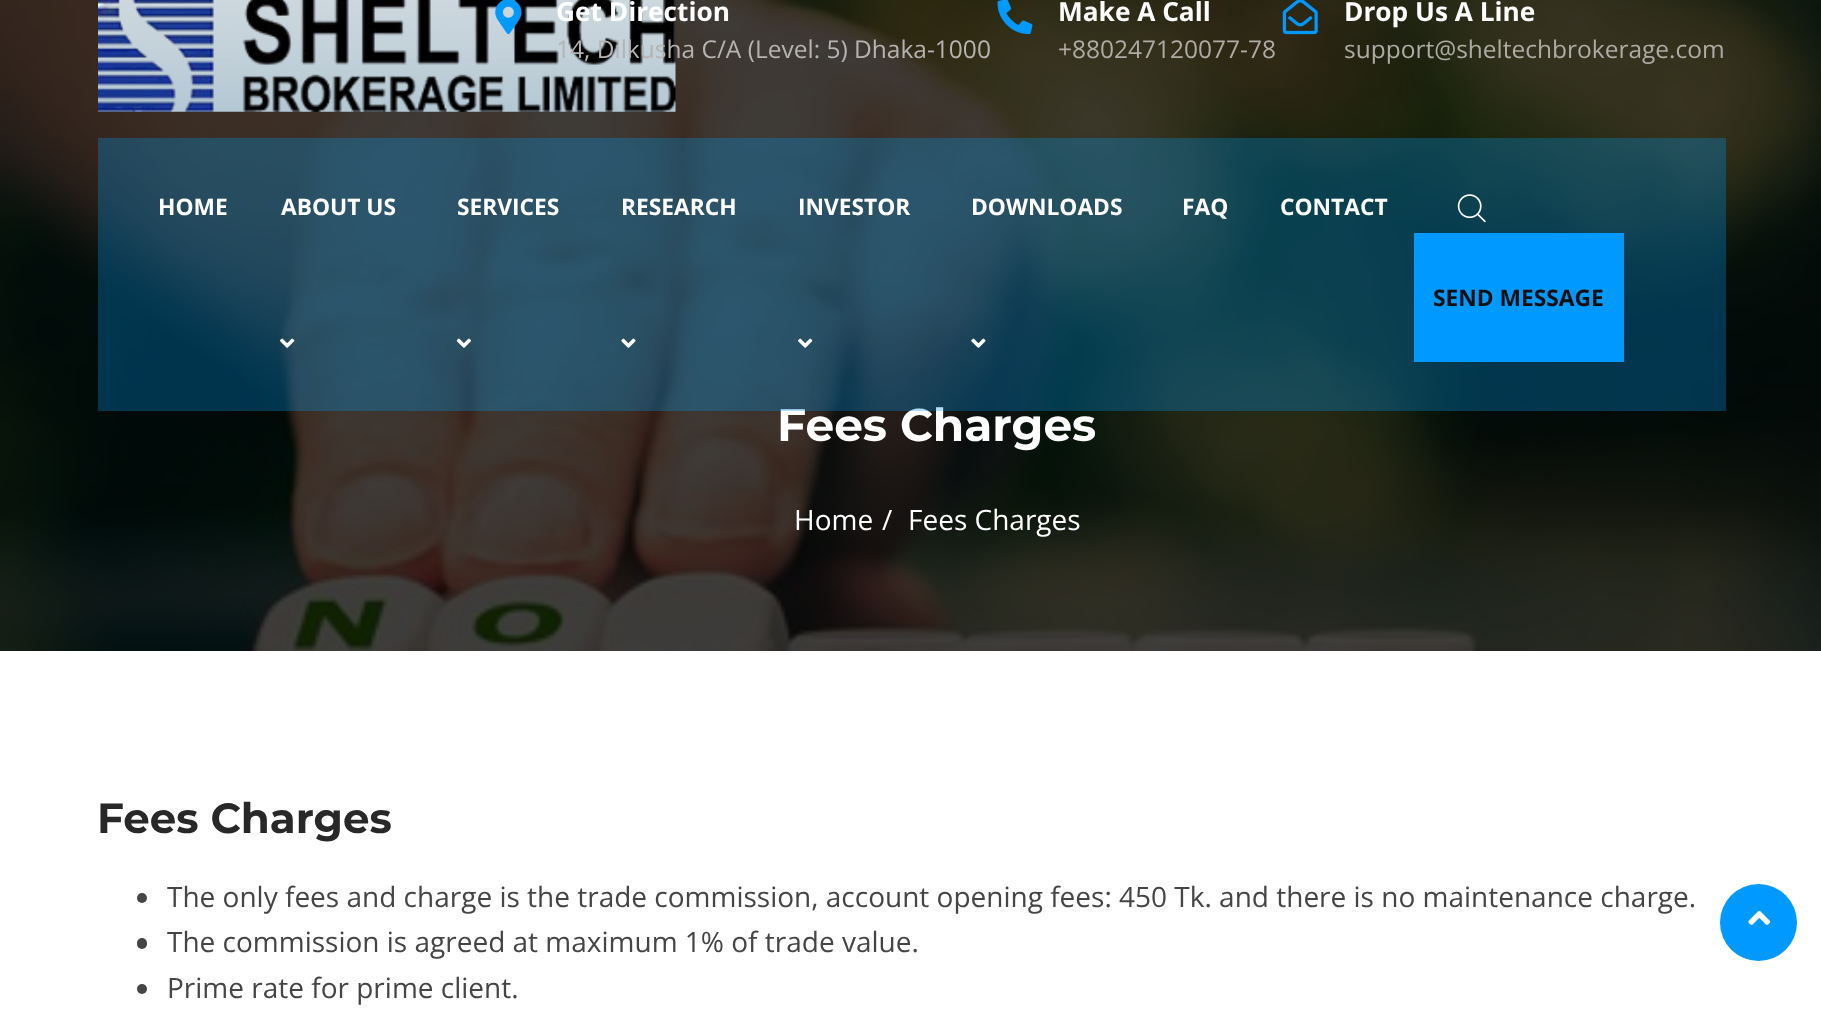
async function draw(canvas) {
  canvas.width = 1821
  canvas.height = 1021
  const ctx = canvas.getContext('2d')
  ctx.miterLimit = 4
  ctx.fontKerning = 'normal'
  async function loadImage(src) {
    const img = new Image()
    img.src = src
    await img.decode()
    return img
  }

  ctx.fillStyle = '#fff'
  ctx.fillRect(0, 0, 1821, 1021)
  ctx.drawImage(await loadImage('image10.png'), 0, 0, 1821, 651)
  ctx.drawImage(await loadImage('image0.png'), 98, 0, 578, 112)
  ctx.drawImage(await loadImage('image1.png'), 495, 0, 27, 35)
  ctx.font = 'bold 26.25px Open Sans'
  ctx.fillText('Get Direction', 556, 21)
  ctx.font = '24.5px Open Sans'
  ctx.fillStyle = '#b5b4b2'
  ctx.fillText('14, Dilkusha C/A (Level: 5) Dhaka-1000', 556, 58)
  ctx.drawImage(await loadImage('image2.png'), 997, 0, 36, 35)
  ctx.font = 'bold 26.25px Open Sans'
  ctx.fillStyle = '#fff'
  ctx.fillText('Make A Call', 1058, 21)
  ctx.font = '24.5px Open Sans'
  ctx.fillStyle = '#adaba3'
  ctx.fillText('+880247120077-78', 1058, 58)
  ctx.drawImage(await loadImage('image3.png'), 1282, 0, 36, 35)
  ctx.font = 'bold 26.25px Open Sans'
  ctx.fillStyle = '#fff'
  ctx.fillText('Drop Us A Line', 1344, 21)
  ctx.font = '24.5px Open Sans'
  ctx.fillStyle = '#adaba3'
  ctx.fillText('support@sheltechbrokerage.com', 1344, 58)
  ctx.font = 'bold 45.5px Montserrat'
  ctx.fillStyle = '#fff'
  ctx.fillText('Fees Charges', 777, 441)
  ctx.fillStyle = '#0099f04d'
  ctx.fillRect(98, 138, 1628, 273)
  ctx.font = 'bold 22.75px Open Sans'
  ctx.fillStyle = '#fff'
  ctx.fillText('HOME', 158, 215)
  ctx.fillText('ABOUT US', 281, 215)
  ctx.drawImage(await loadImage('image4.png'), 280, 338, 15, 10)
  ctx.fillText('SERVICES', 457, 215)
  ctx.drawImage(await loadImage('image5.png'), 456, 338, 15, 10)
  ctx.fillText('RESEARCH', 621, 215)
  ctx.drawImage(await loadImage('image6.png'), 621, 338, 15, 10)
  ctx.fillText('INVESTOR', 798, 215)
  ctx.drawImage(await loadImage('image7.png'), 798, 338, 15, 10)
  ctx.fillText('DOWNLOADS', 971, 215)
  ctx.drawImage(await loadImage('image8.png'), 971, 338, 15, 10)
  ctx.fillText('FAQ', 1182, 215)
  ctx.fillText('CONTACT', 1280, 215)
  ctx.drawImage(await loadImage('image9.png'), 1457, 194, 29, 29)
  ctx.fillStyle = '#09f'
  ctx.fillRect(1414, 233, 210, 129)
  ctx.fillStyle = '#101010'
  ctx.fillText('SEND MESSAGE', 1433, 306)
  ctx.font = '28px Open Sans'
  ctx.fillStyle = '#fff'
  ctx.fillText('Home', 794, 530)
  ctx.fillText('/', 882, 530)
  ctx.fillText('Fees Charges', 908, 530)
  ctx.font = 'bold 42px Montserrat'
  ctx.fillStyle = '#282828'
  ctx.fillText('Fees Charges', 97, 833)
  ctx.fillStyle = '#454545'
  ctx.beginPath()
  ctx.arc(142, 898, 5, 0, 2 * Math.PI)
  ctx.fill()
  ctx.font = '28px Open Sans'
  ctx.fillText('The only fees and charge is the trade commission, account opening fees: 450 Tk. and there is no maintenance charge.', 167, 907)
  ctx.beginPath()
  ctx.roundRect(137, 938, 10, 11, 5)
  ctx.fill()
  ctx.fillText('The commission is agreed at maximum 1% of trade value.', 167, 952)
  ctx.beginPath()
  ctx.arc(142, 989, 5, 0, 2 * Math.PI)
  ctx.fill()
  ctx.fillText('Prime rate for prime client.', 167, 998)
  ctx.fillStyle = '#09f'
  ctx.beginPath()
  ctx.arc(1758.5, 922.5, 38.5, 0, 2 * Math.PI)
  ctx.fill()
  ctx.drawImage(await loadImage('image11.png'), 1748, 910, 23, 15)
}

draw(document.querySelector('canvas'))
